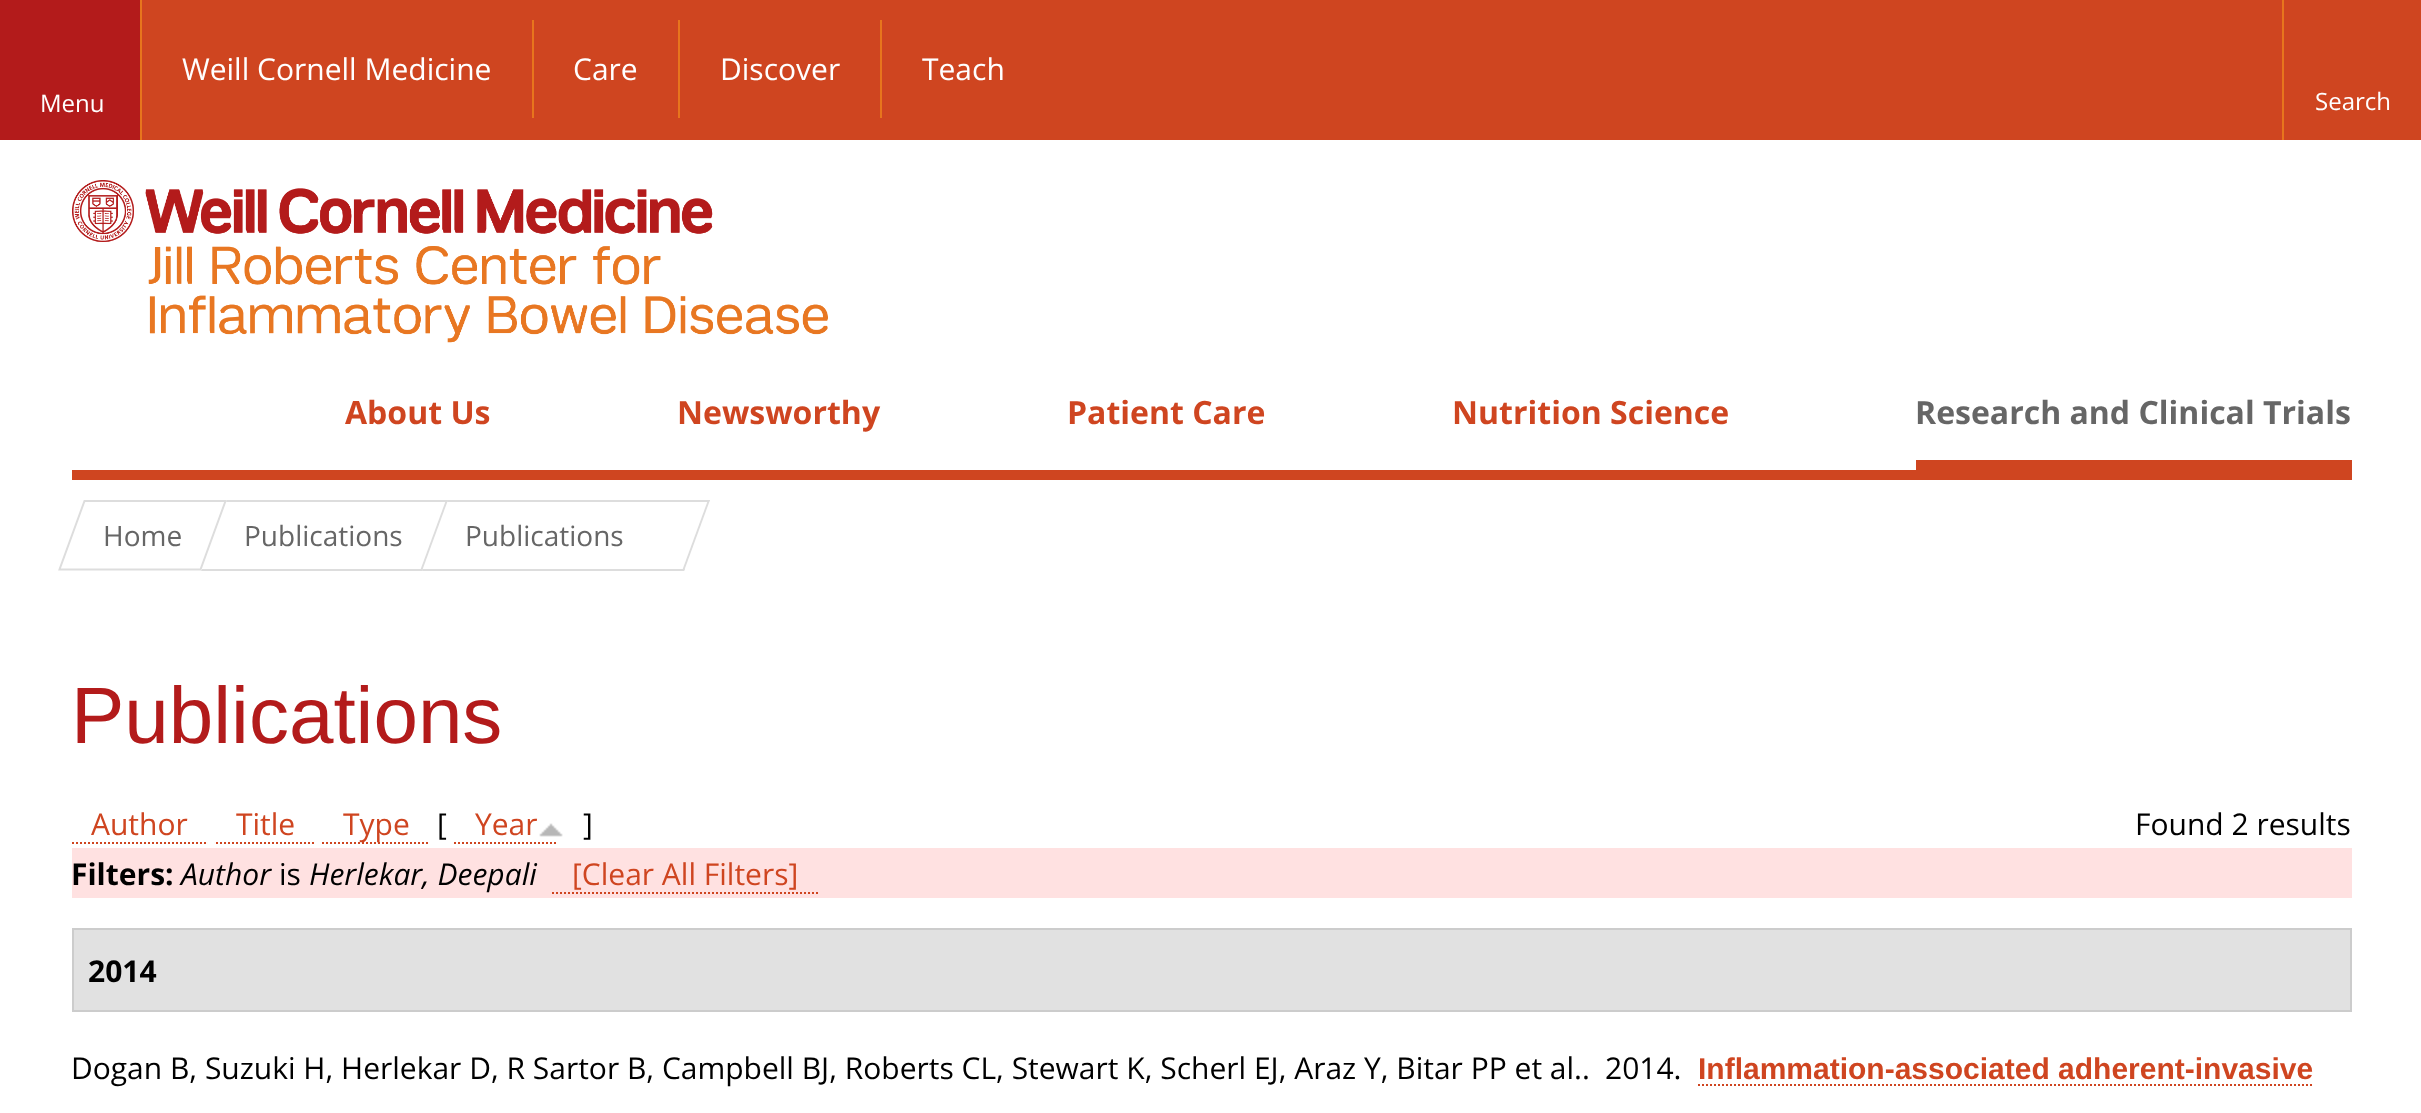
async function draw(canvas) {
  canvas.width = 2421
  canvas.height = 1113
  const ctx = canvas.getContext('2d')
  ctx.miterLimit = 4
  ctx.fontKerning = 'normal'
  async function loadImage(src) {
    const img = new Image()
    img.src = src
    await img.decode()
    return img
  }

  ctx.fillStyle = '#fff'
  ctx.fillRect(0, 0, 2421, 1113)
  ctx.fillStyle = '#cf4520'
  ctx.fillRect(142, 0, 2279, 140)
  ctx.fillStyle = '#e7751d'
  ctx.fillRect(532, 20, 2, 98)
  ctx.font = '30px Open Sans'
  ctx.fillStyle = '#fff'
  ctx.fillText('Weill Cornell Medicine', 182, 80)
  ctx.fillStyle = '#e7751d'
  ctx.fillRect(678, 20, 2, 98)
  ctx.fillStyle = '#fff'
  ctx.fillText('Care', 573, 80)
  ctx.fillStyle = '#e7751d'
  ctx.fillRect(880, 20, 2, 98)
  ctx.fillStyle = '#fff'
  ctx.fillText('Discover', 720, 80)
  ctx.fillText('Teach', 922, 80)
  ctx.fillStyle = '#b31b1b'
  ctx.fillRect(0, 0, 140, 140)
  ctx.fillStyle = '#e7751d'
  ctx.fillRect(140, 0, 2, 140)
  ctx.font = '24px Open Sans'
  ctx.fillStyle = '#fff'
  ctx.fillText('Menu', 40, 112)
  ctx.fillStyle = '#e7751d'
  ctx.fillRect(2282, 0, 2, 140)
  ctx.fillStyle = '#fff'
  ctx.fillText('Search', 2315, 110)
  ctx.drawImage(await loadImage('image0.png'), 72, 180, 756, 163)
  ctx.fillStyle = '#cf4520'
  ctx.fillRect(72, 470, 2280, 10)
  ctx.font = 'bold 32px Open Sans'
  ctx.fillText('About Us', 345, 424)
  ctx.fillText('Newsworthy', 677, 424)
  ctx.fillText('Patient Care', 1067, 424)
  ctx.fillText('Nutrition Science', 1452, 424)
  ctx.fillRect(1916, 460, 436, 10)
  ctx.fillStyle = '#666'
  ctx.fillText('Research and Clinical Trials', 1915, 424)
  ctx.beginPath()
  ctx.moveTo(84.5, 501)
  ctx.lineTo(225.5, 501)
  ctx.lineTo(200.5, 569.5)
  ctx.lineTo(59.5, 569.5)
  ctx.closePath()
  ctx.strokeStyle = '#ddd'
  ctx.lineWidth = 2
  ctx.stroke()
  ctx.font = '28px Open Sans'
  ctx.fillText('Home', 103, 546)
  ctx.fillStyle = '#ddd'
  ctx.beginPath()
  ctx.moveTo(227, 500)
  ctx.lineTo(448, 500)
  ctx.lineTo(447, 502)
  ctx.lineTo(226, 502)
  ctx.closePath()
  ctx.fill()
  ctx.beginPath()
  ctx.moveTo(446, 500)
  ctx.lineTo(448, 500)
  ctx.lineTo(422, 571)
  ctx.lineTo(420, 571)
  ctx.closePath()
  ctx.fill()
  ctx.beginPath()
  ctx.moveTo(202, 569)
  ctx.lineTo(423, 569)
  ctx.lineTo(422, 571)
  ctx.lineTo(201, 571)
  ctx.closePath()
  ctx.fill()
  ctx.fillStyle = '#666'
  ctx.fillText('Publications', 244, 546)
  ctx.fillStyle = '#ddd'
  ctx.beginPath()
  ctx.moveTo(448, 500)
  ctx.lineTo(710, 500)
  ctx.lineTo(709, 502)
  ctx.lineTo(447, 502)
  ctx.closePath()
  ctx.fill()
  ctx.beginPath()
  ctx.moveTo(708, 500)
  ctx.lineTo(710, 500)
  ctx.lineTo(684, 571)
  ctx.lineTo(682, 571)
  ctx.closePath()
  ctx.fill()
  ctx.beginPath()
  ctx.moveTo(423, 569)
  ctx.lineTo(685, 569)
  ctx.lineTo(684, 571)
  ctx.lineTo(422, 571)
  ctx.closePath()
  ctx.fill()
  ctx.fillStyle = '#666'
  ctx.fillText('Publications', 465, 546)
  ctx.font = '80px Liberation Sans'
  ctx.fillStyle = '#b31b1b'
  ctx.fillText('Publications', 71, 743)
  ctx.font = '30px Open Sans'
  ctx.fillStyle = '#cf4520'
  ctx.fillText('Author', 91, 835)
  ctx.beginPath()
  ctx.moveTo(72, 843)
  ctx.lineTo(208, 843)
  ctx.strokeStyle = '#cf4520'
  ctx.setLineDash([2, 2])
  ctx.stroke()
  ctx.fillText('Title', 236, 835)
  ctx.beginPath()
  ctx.moveTo(216, 843)
  ctx.lineTo(314, 843)
  ctx.stroke()
  ctx.beginPath()
  ctx.moveTo(322, 843)
  ctx.lineTo(430, 843)
  ctx.stroke()
  ctx.fillText('Type', 343, 835)
  ctx.fillStyle = '#000'
  ctx.fillText('[', 437, 835)
  ctx.fillStyle = '#cf4520'
  ctx.fillText('Year', 475, 835)
  ctx.beginPath()
  ctx.moveTo(454, 843)
  ctx.lineTo(558, 843)
  ctx.stroke()
  ctx.drawImage(await loadImage('image1.png'), 539, 823, 24, 14)
  ctx.fillStyle = '#000'
  ctx.fillText(']', 583, 835)
  ctx.fillText('Found 2 results', 2135, 835)
  ctx.fillStyle = '#ffe1e1'
  ctx.fillRect(72, 848, 2280, 50)
  ctx.font = 'bold 30px Open Sans'
  ctx.fillStyle = '#000'
  ctx.fillText('Filters:', 71, 885)
  ctx.font = 'italic 30px Open Sans'
  ctx.fillText('Author', 181, 885)
  ctx.font = '30px Open Sans'
  ctx.fillText('is', 279, 885)
  ctx.font = 'italic 30px Open Sans'
  ctx.fillText('Herlekar, Deepali', 309, 885)
  ctx.font = '30px Open Sans'
  ctx.fillStyle = '#cf4520'
  ctx.fillText('[Clear All Filters]', 572, 885)
  ctx.beginPath()
  ctx.moveTo(552, 893)
  ctx.lineTo(818, 893)
  ctx.stroke()
  ctx.fillStyle = '#e1e1e1'
  ctx.beginPath()
  ctx.rect(73, 929, 2278, 82)
  ctx.fill()
  ctx.strokeStyle = '#ccc'
  ctx.setLineDash([])
  ctx.stroke()
  ctx.font = 'bold 30px Open Sans'
  ctx.fillStyle = '#000'
  ctx.fillText('2014', 88, 982)
  ctx.font = '30px Open Sans'
  ctx.fillText('Dogan B, Suzuki H, Herlekar D, R Sartor B, Campbell BJ, Roberts CL, Stewart K, Scherl EJ, Araz Y, Bitar PP et al..', 71, 1079)
  ctx.fillText('2014.', 1605, 1079)
  ctx.font = 'bold 30px Liberation Sans'
  ctx.fillStyle = '#cf4520'
  ctx.fillText('Inflammation-associated adherent-invasive', 1698, 1079)
  ctx.beginPath()
  ctx.moveTo(1698, 1085)
  ctx.lineTo(2312, 1085)
  ctx.strokeStyle = '#cf4520'
  ctx.setLineDash([2, 2])
  ctx.stroke()
}

draw(document.querySelector('canvas'))
